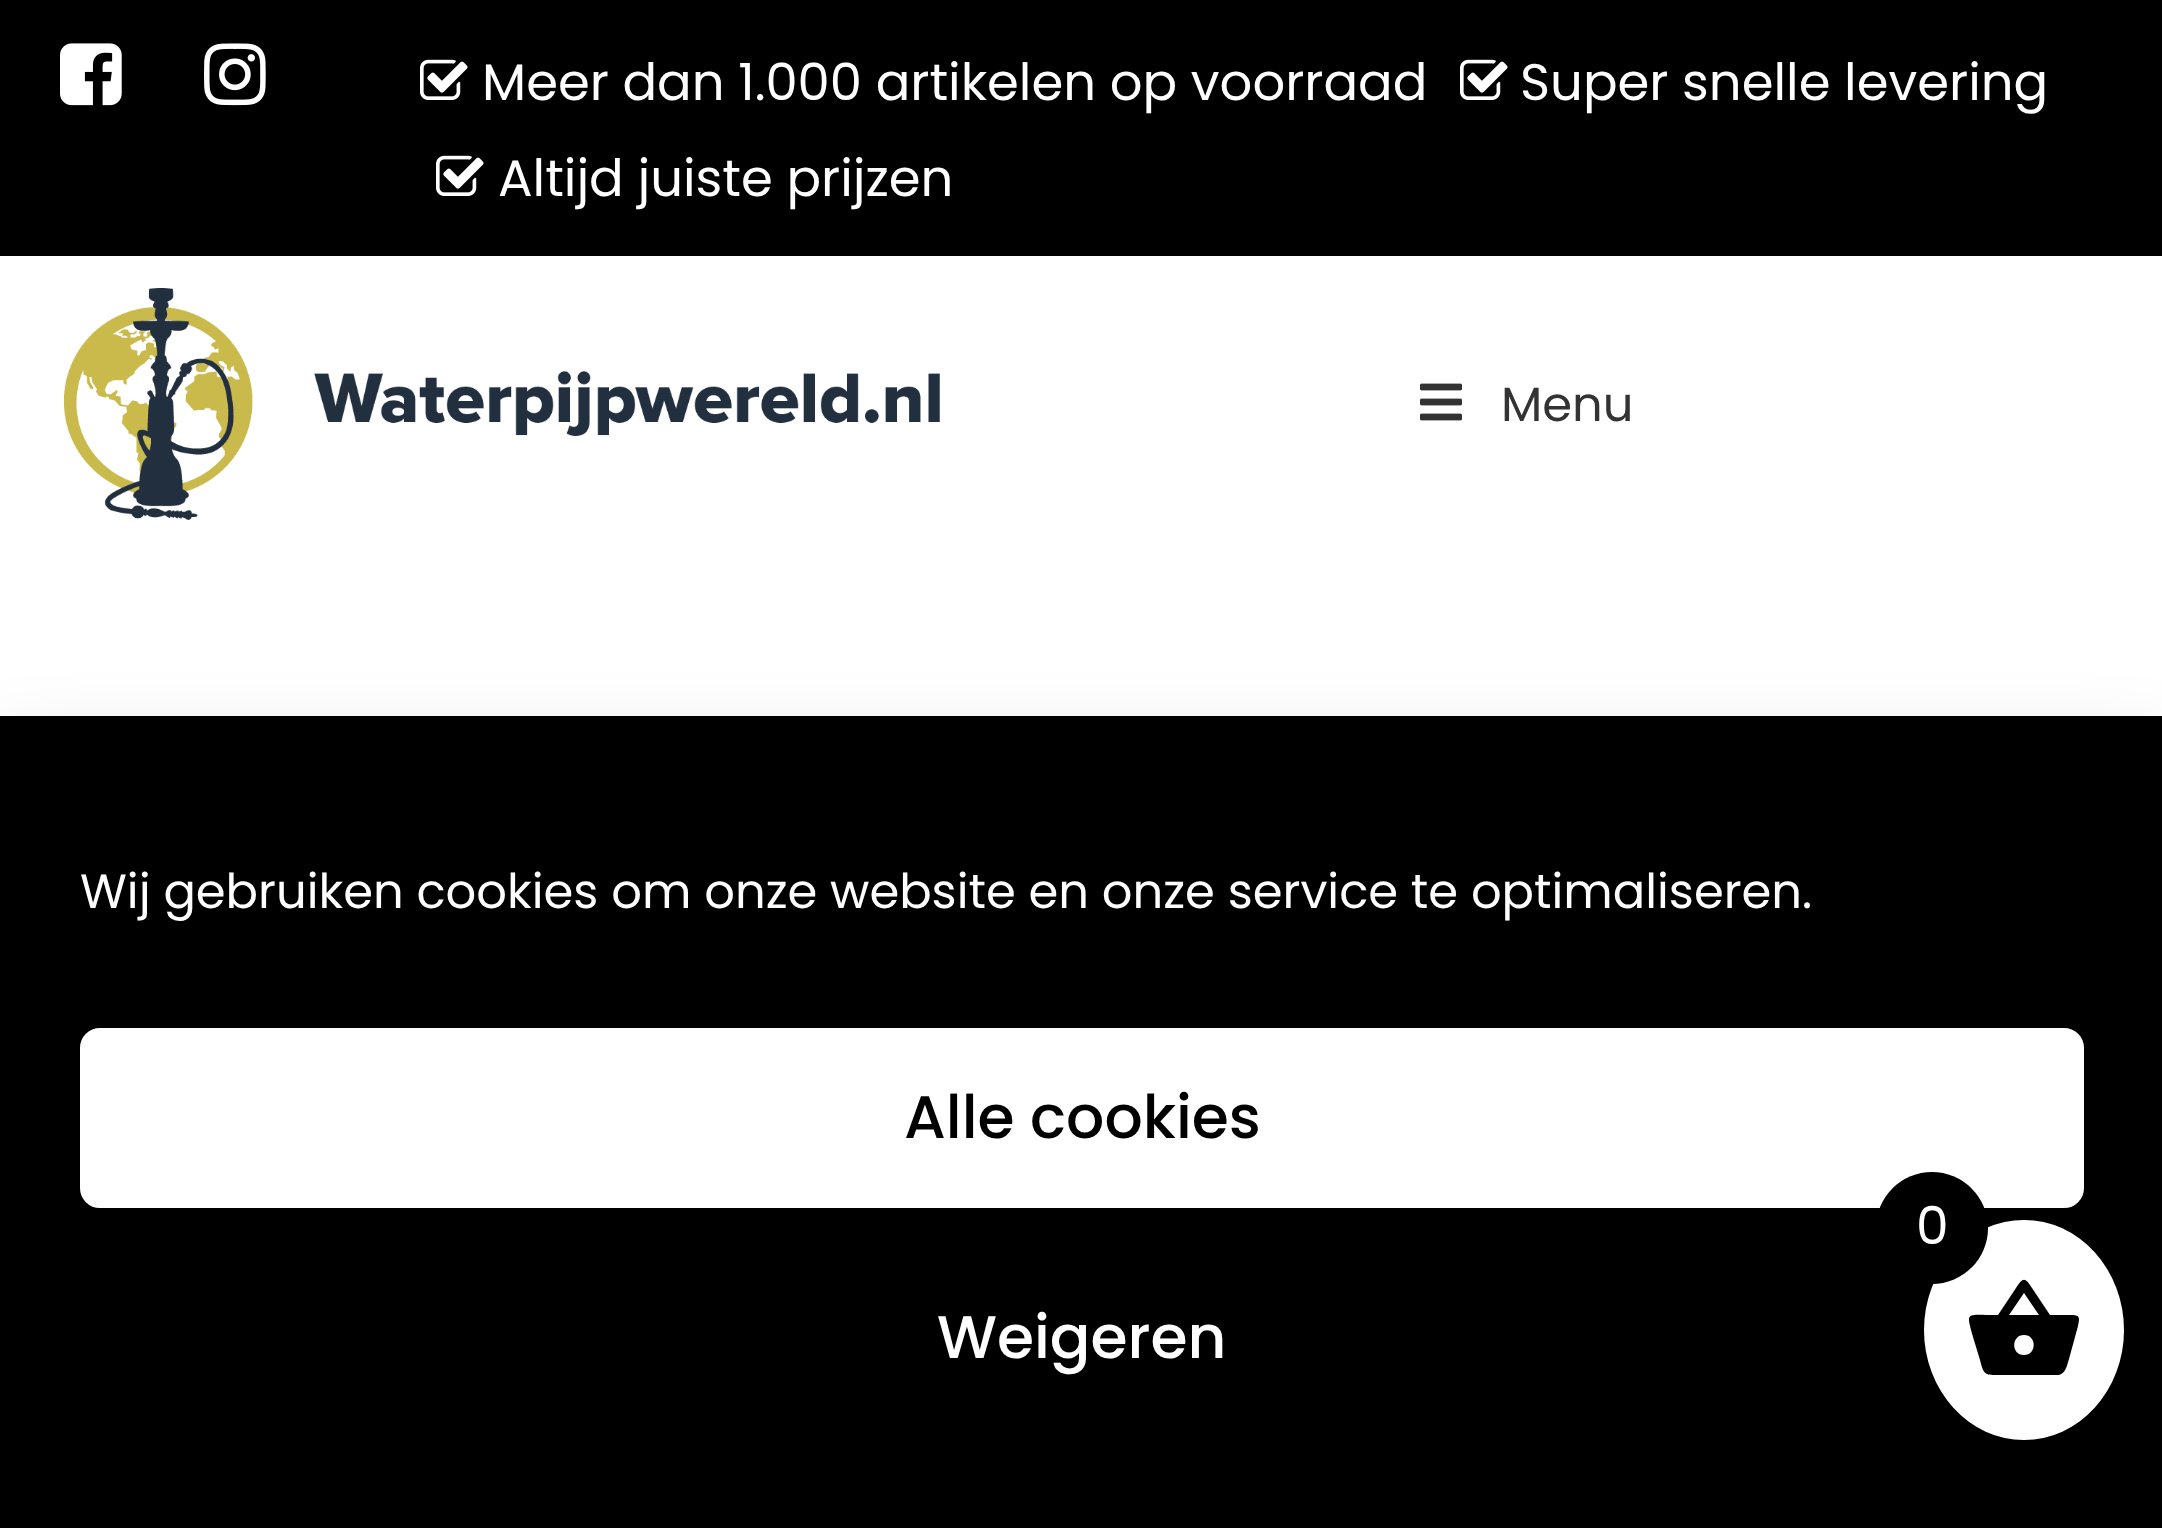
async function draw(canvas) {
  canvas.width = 2162
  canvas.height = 1528
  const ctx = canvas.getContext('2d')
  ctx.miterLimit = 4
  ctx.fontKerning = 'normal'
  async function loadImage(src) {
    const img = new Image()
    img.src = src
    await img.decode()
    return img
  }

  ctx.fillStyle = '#fff'
  ctx.fillRect(0, 0, 2162, 1528)
  ctx.fillStyle = '#000'
  ctx.fillRect(0, 0, 2162, 256)
  ctx.drawImage(await loadImage('image0.png'), 60, 43, 62, 63)
  ctx.drawImage(await loadImage('image1.png'), 204, 43, 62, 63)
  ctx.drawImage(await loadImage('image2.png'), 420, 59, 48, 41)
  ctx.font = '51.25px Poppins'
  ctx.fillStyle = '#fff'
  ctx.fillText('Meer dan 1.000 artikelen op voorraad', 482, 100)
  ctx.drawImage(await loadImage('image2.png'), 1460, 59, 48, 41)
  ctx.fillText('Super snelle levering', 1520, 100)
  ctx.drawImage(await loadImage('image2.png'), 436, 155, 48, 41)
  ctx.fillText('Altijd juiste prijzen', 498, 196)
  ctx.drawImage(await loadImage('image3.png'), 64, 288, 876, 232)
  ctx.drawImage(await loadImage('image4.png'), 1420, 383, 42, 38)
  ctx.font = '48px Poppins'
  ctx.fillStyle = '#333'
  ctx.fillText('Menu', 1501, 421)
  ctx.fillStyle = '#00000030'
  ctx.filter = 'blur(40px)'
  ctx.beginPath()
  ctx.rect(0, 756, 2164, 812)
  ctx.fill()
  ctx.filter = 'none'
  ctx.fillStyle = '#000'
  ctx.fillRect(0, 716, 2162, 812)
  ctx.fillStyle = '#fff'
  ctx.fillText('Wij gebruiken cookies om onze website en onze service te optimaliseren.', 80, 908)
  ctx.beginPath()
  ctx.roundRect(82, 1030, 2000, 176, 18)
  ctx.fill()
  ctx.strokeStyle = '#fff'
  ctx.lineWidth = 4
  ctx.stroke()
  ctx.font = '500 60px Poppins'
  ctx.fillStyle = '#000'
  ctx.fillText('Alle cookies', 904, 1138)
  ctx.fillStyle = '#fff'
  ctx.fillText('Weigeren', 937, 1358)
  ctx.beginPath()
  ctx.ellipse(2024, 1330, 100, 110, 0, 0, 2 * Math.PI)
  ctx.fill()
  ctx.fillStyle = '#000'
  ctx.beginPath()
  ctx.arc(1932, 1228, 56, 0, 2 * Math.PI)
  ctx.fill()
  ctx.font = '52px Poppins'
  ctx.fillStyle = '#fff'
  ctx.fillText('0', 1916, 1244)
  ctx.fillStyle = '#000'
  ctx.beginPath()
  ctx.moveTo(2024, 1355)
  ctx.bezierCurveTo(2037, 1355, 2037, 1335, 2024, 1335)
  ctx.bezierCurveTo(2011, 1335, 2011, 1355, 2024, 1355)
  ctx.closePath()
  ctx.moveTo(2009, 1315)
  ctx.lineTo(2039, 1315)
  ctx.lineTo(2024, 1293)
  ctx.closePath()
  ctx.moveTo(2050, 1315)
  ctx.lineTo(2070, 1315)
  ctx.bezierCurveTo(2080, 1315, 2080, 1317, 2078, 1326)
  ctx.lineTo(2069, 1359)
  ctx.bezierCurveTo(2067, 1365, 2066, 1373, 2059, 1375)
  ctx.lineTo(2002, 1375)
  ctx.bezierCurveTo(1985, 1375, 1984, 1376, 1980, 1360)
  ctx.lineTo(1973, 1337)
  ctx.bezierCurveTo(1966, 1310, 1965, 1315, 1998, 1315)
  ctx.lineTo(2016, 1288)
  ctx.bezierCurveTo(2023, 1277, 2025, 1277, 2032, 1288)
  ctx.closePath()
  ctx.fill()
}

draw(document.querySelector('canvas'))
